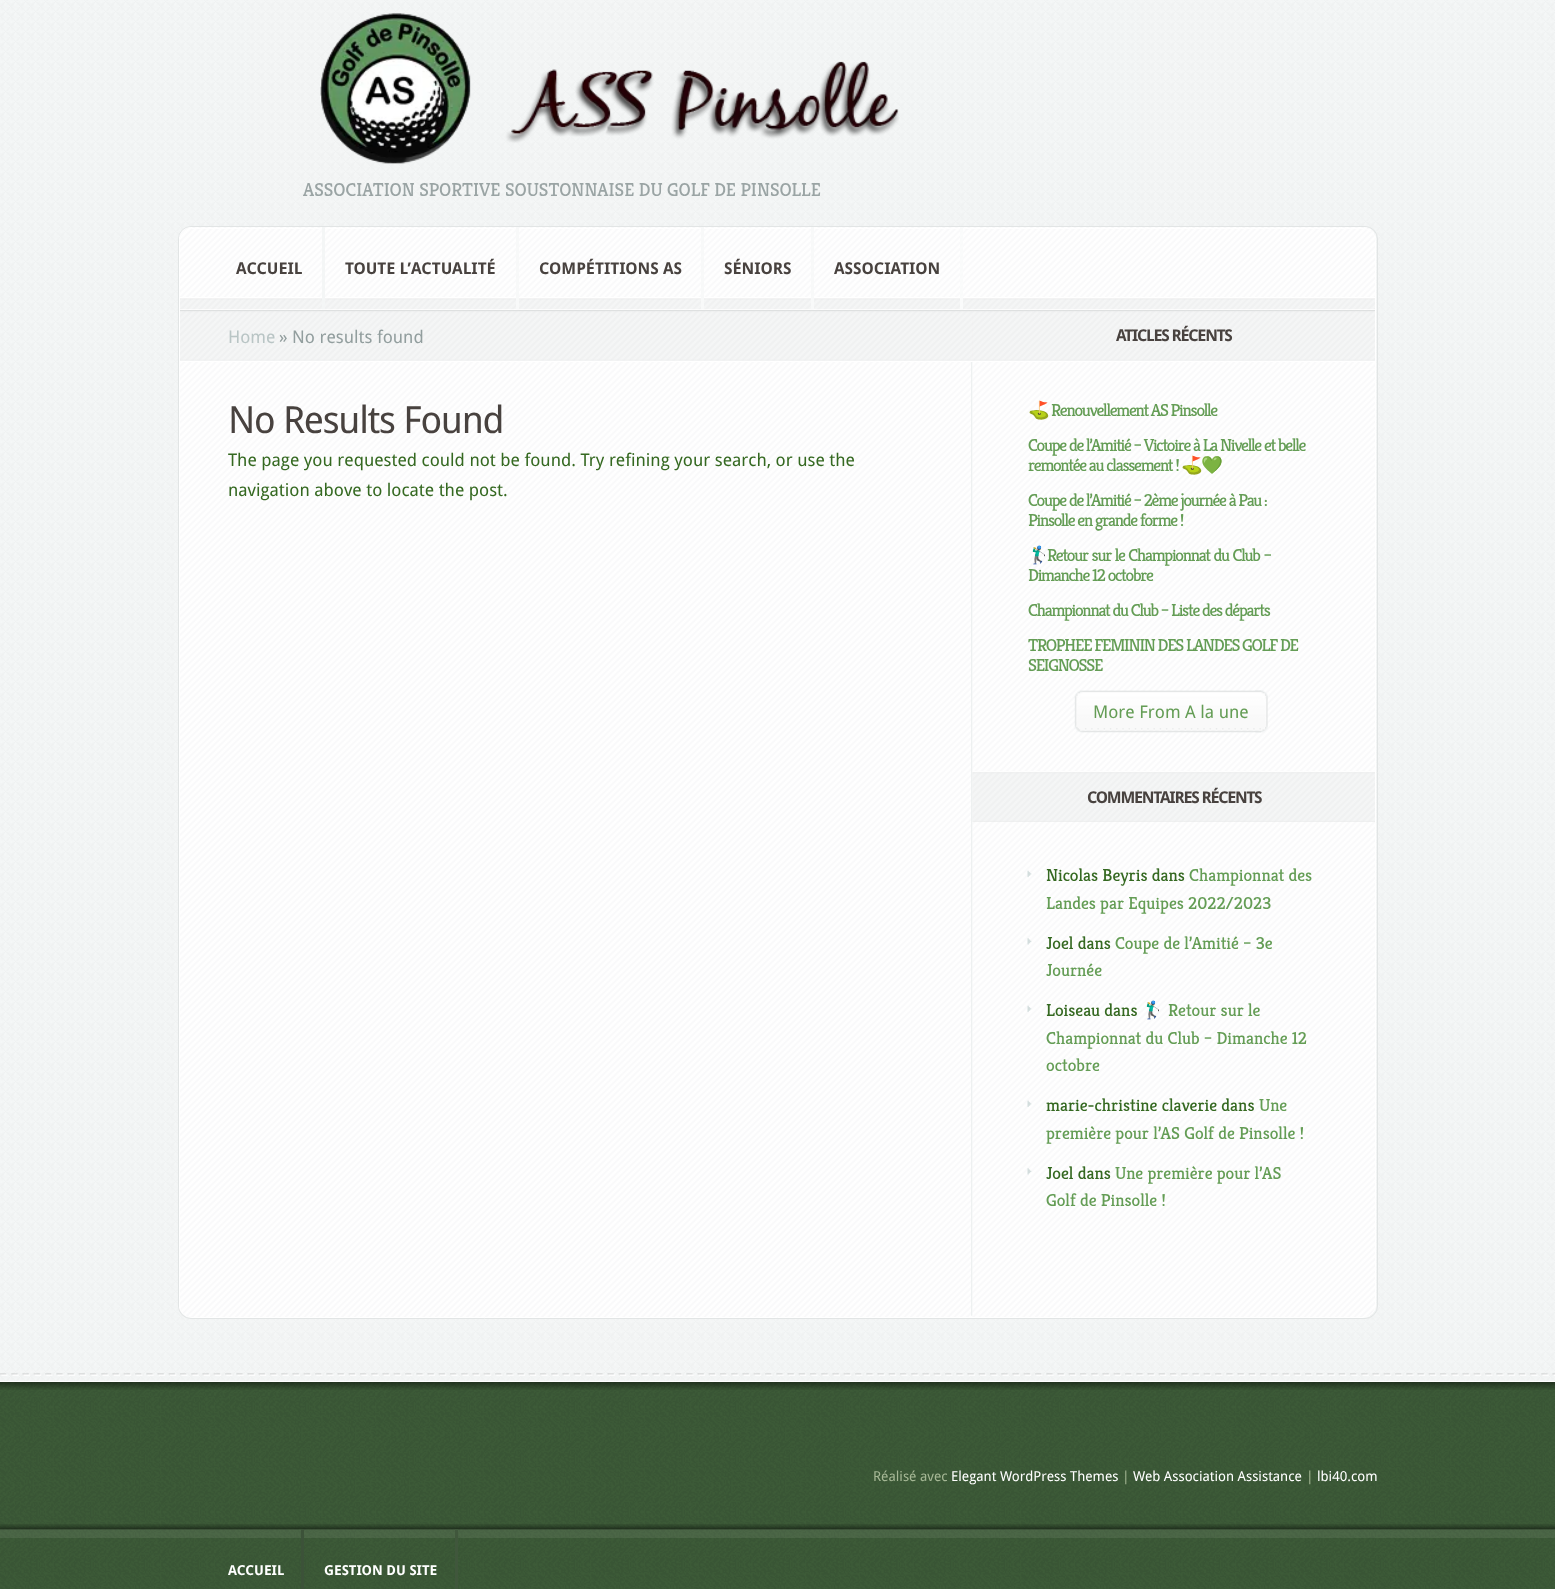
async function draw(canvas) {
  canvas.width = 1555
  canvas.height = 1589
  const ctx = canvas.getContext('2d')
  ctx.miterLimit = 4
  ctx.fontKerning = 'normal'
  async function loadImage(src) {
    const img = new Image()
    img.src = src
    await img.decode()
    return img
  }

  ctx.fillStyle = '#fafcfc'
  ctx.fillRect(0, 0, 1555, 1589)
  ctx.drawImage(await loadImage('image0.png'), 0, 0, 1555, 1381)
  ctx.fillStyle = '#fff'
  ctx.fillRect(0, 1381, 1555, 1)
  ctx.drawImage(await loadImage('image1.png'), 320, 13, 579, 151)
  ctx.font = '18.75px Kreon'
  ctx.fillStyle = '#9aa4a4'
  ctx.fillText('ASSOCIATION SPORTIVE SOUSTONNAISE DU GOLF DE PINSOLLE', 303, 196)
  ctx.beginPath()
  ctx.roundRect(178.5, 226.5, 1199, 1092, 12.5)
  ctx.strokeStyle = '#e2e5e5'
  ctx.stroke()
  ctx.drawImage(await loadImage('image2.png'), 179, 227, 1197, 1090)
  ctx.beginPath()
  ctx.roundRect(179.5, 228.5, 1196, 1089, 12.5)
  ctx.strokeStyle = '#fff'
  ctx.stroke()
  ctx.drawImage(await loadImage('image3.png'), 180, 297, 1195, 13)
  ctx.fillStyle = '#f4f6f6'
  ctx.fillRect(322, 227, 3, 83)
  ctx.font = 'bold 16.25px Droid Sans'
  ctx.fillStyle = '#48423f'
  ctx.fillText('ACCUEIL', 236, 274)
  ctx.fillStyle = '#f8f9f9'
  ctx.fillRect(516, 227, 3, 82)
  ctx.fillStyle = '#48423f'
  ctx.fillText('TOUTE L’ACTUALITÉ', 345, 274)
  ctx.fillStyle = '#f8f9f9'
  ctx.fillRect(701, 227, 3, 82)
  ctx.fillStyle = '#48423f'
  ctx.fillText('COMPÉTITIONS AS', 539, 274)
  ctx.fillStyle = '#f8f9f9'
  ctx.fillRect(811, 227, 3, 82)
  ctx.fillStyle = '#48423f'
  ctx.fillText('SÉNIORS', 724, 274)
  ctx.fillStyle = '#fafbfb'
  ctx.fillRect(960, 227, 3, 82)
  ctx.fillStyle = '#48423f'
  ctx.fillText('ASSOCIATION', 834, 274)
  ctx.drawImage(await loadImage('image4.png'), 180, 309, 793, 53)
  ctx.drawImage(await loadImage('image6.png'), 972, 309, 403, 53)
  ctx.fillStyle = '#dee0e0'
  ctx.fillRect(180, 310, 1195, 1)
  ctx.font = '17.5px Droid Sans'
  ctx.fillStyle = '#b9c5c5'
  ctx.fillText('Home', 228, 343)
  ctx.fillStyle = '#929e9e'
  ctx.fillText('» No results found', 279, 343)
  ctx.drawImage(await loadImage('image5.png'), 971, 362, 2, 954)
  ctx.letterSpacing = '-1.25px'
  ctx.font = '37.5px Droid Sans'
  ctx.fillStyle = '#48423f'
  ctx.fillText('No Results Found', 228, 433)
  ctx.letterSpacing = '0px'
  ctx.font = '17.5px Droid Sans'
  ctx.fillStyle = '#356921'
  ctx.fillText('The page you requested could not be found. Try refining your search, or use the', 228, 466)
  ctx.fillText('navigation above to locate the post.', 228, 496)
  ctx.letterSpacing = '-1.25px'
  ctx.font = 'bold 16.25px Droid Sans'
  ctx.fillStyle = '#48423f'
  ctx.fillText('ATICLES RÉCENTS', 1116, 341)
  ctx.font = '17.5px Noto Color Emoji'
  ctx.fillStyle = '#649d55'
  ctx.fillText('⛳', 1028, 416)
  ctx.font = '17.5px Kreon'
  ctx.fillText('Renouvellement AS Pinsolle', 1051, 416)
  ctx.fillText('Coupe de l’Amitié – Victoire à La Nivelle et belle', 1028, 451)
  ctx.fillText('remontée au classement !', 1028, 471)
  ctx.font = '17.5px Noto Color Emoji'
  ctx.fillText('⛳💚', 1181, 471)
  ctx.font = '17.5px Kreon'
  ctx.fillText('Coupe de l’Amitié – 2ème journée à Pau :', 1028, 506)
  ctx.fillText('Pinsolle en grande forme !', 1028, 526)
  ctx.font = '17.5px Noto Color Emoji'
  ctx.fillText('🏌️‍♂️', 1028, 561)
  ctx.wordSpacing = '0.75px'
  ctx.font = '17.5px Kreon'
  ctx.fillText('Retour sur le Championnat du Club –', 1047, 561)
  ctx.wordSpacing = '0px'
  ctx.fillText('Dimanche 12 octobre', 1028, 581)
  ctx.fillText('Championnat du Club – Liste des départs', 1028, 616)
  ctx.fillText('TROPHEE FEMININ DES LANDES GOLF DE', 1028, 651)
  ctx.fillText('SEIGNOSSE', 1028, 671)
  ctx.drawImage(await loadImage('image7.png'), 1255, 690, 13, 43)
  ctx.drawImage(await loadImage('image8.png'), 1074, 690, 187, 43)
  ctx.letterSpacing = '0px'
  ctx.font = '17.5px Droid Sans'
  ctx.fillText('More From A la une', 1093, 718)
  ctx.drawImage(await loadImage('image9.png'), 972, 771, 403, 51)
  ctx.letterSpacing = '-1.25px'
  ctx.font = 'bold 16.25px Droid Sans'
  ctx.fillStyle = '#48423f'
  ctx.fillText('COMMENTAIRES RÉCENTS', 1087, 803)
  ctx.drawImage(await loadImage('image10.png'), 1027, 870, 5, 8)
  ctx.letterSpacing = '0px'
  ctx.font = '17.5px Kreon'
  ctx.fillStyle = '#356921'
  ctx.fillText('Nicolas Beyris dans', 1046, 881)
  ctx.fillStyle = '#649d55'
  ctx.fillText('Championnat des', 1189, 881)
  ctx.fillText('Landes par Equipes 2022/2023', 1046, 909)
  ctx.drawImage(await loadImage('image11.png'), 1027, 938, 5, 7)
  ctx.fillStyle = '#356921'
  ctx.fillText('Joel dans', 1046, 949)
  ctx.fillStyle = '#649d55'
  ctx.fillText('Coupe de l’Amitié – 3e', 1115, 949)
  ctx.fillText('Journée', 1046, 976)
  ctx.drawImage(await loadImage('image12.png'), 1027, 1005, 5, 7)
  ctx.fillStyle = '#356921'
  ctx.fillText('Loiseau dans', 1046, 1016)
  ctx.font = '17.5px Noto Color Emoji'
  ctx.fillStyle = '#649d55'
  ctx.fillText('🏌️‍♂️', 1142, 1016)
  ctx.font = '17.5px Kreon'
  ctx.fillText('Retour sur le', 1168, 1016)
  ctx.fillText('Championnat du Club – Dimanche 12', 1046, 1044)
  ctx.fillText('octobre', 1046, 1071)
  ctx.drawImage(await loadImage('image13.png'), 1027, 1100, 5, 7)
  ctx.fillStyle = '#356921'
  ctx.fillText('marie-christine claverie dans', 1046, 1111)
  ctx.fillStyle = '#649d55'
  ctx.fillText('Une', 1259, 1111)
  ctx.fillText('première pour l’AS Golf de Pinsolle !', 1046, 1139)
  ctx.drawImage(await loadImage('image14.png'), 1027, 1168, 5, 7)
  ctx.fillStyle = '#356921'
  ctx.fillText('Joel dans', 1046, 1179)
  ctx.fillStyle = '#649d55'
  ctx.fillText('Une première pour l’AS', 1115, 1179)
  ctx.fillText('Golf de Pinsolle !', 1046, 1206)
  ctx.drawImage(await loadImage('image15.png'), 0, 1373, 1555, 3)
  ctx.drawImage(await loadImage('image16.png'), 0, 1382, 1555, 207)
  ctx.drawImage(await loadImage('image17.png'), 0, 1382, 1555, 8)
  ctx.font = '13.75px Droid Sans'
  ctx.fillStyle = '#a5b795'
  ctx.fillText('Réalisé avec', 873, 1481)
  ctx.fillStyle = '#fff'
  ctx.fillText('Elegant WordPress Themes', 951, 1481)
  ctx.fillStyle = '#a5b795'
  ctx.fillText('|', 1122, 1481)
  ctx.fillStyle = '#fff'
  ctx.fillText('Web Association Assistance', 1133, 1481)
  ctx.fillStyle = '#a5b795'
  ctx.fillText('|', 1306, 1481)
  ctx.fillStyle = '#fff'
  ctx.fillText('lbi40.com', 1317, 1481)
  ctx.drawImage(await loadImage('image18.png'), 0, 1524, 1555, 6)
  ctx.fillStyle = '#ffffff14'
  ctx.fillRect(0, 1529, 1555, 9)
  ctx.fillStyle = '#3c5239'
  ctx.fillRect(301, 1529, 3, 60)
  ctx.font = 'bold 13.75px Droid Sans'
  ctx.fillStyle = '#fff'
  ctx.fillText('ACCUEIL', 228, 1575)
  ctx.fillStyle = '#40573c'
  ctx.fillRect(455, 1529, 3, 60)
  ctx.fillStyle = '#fff'
  ctx.fillText('GESTION DU SITE', 324, 1575)
}

draw(document.querySelector('canvas'))
